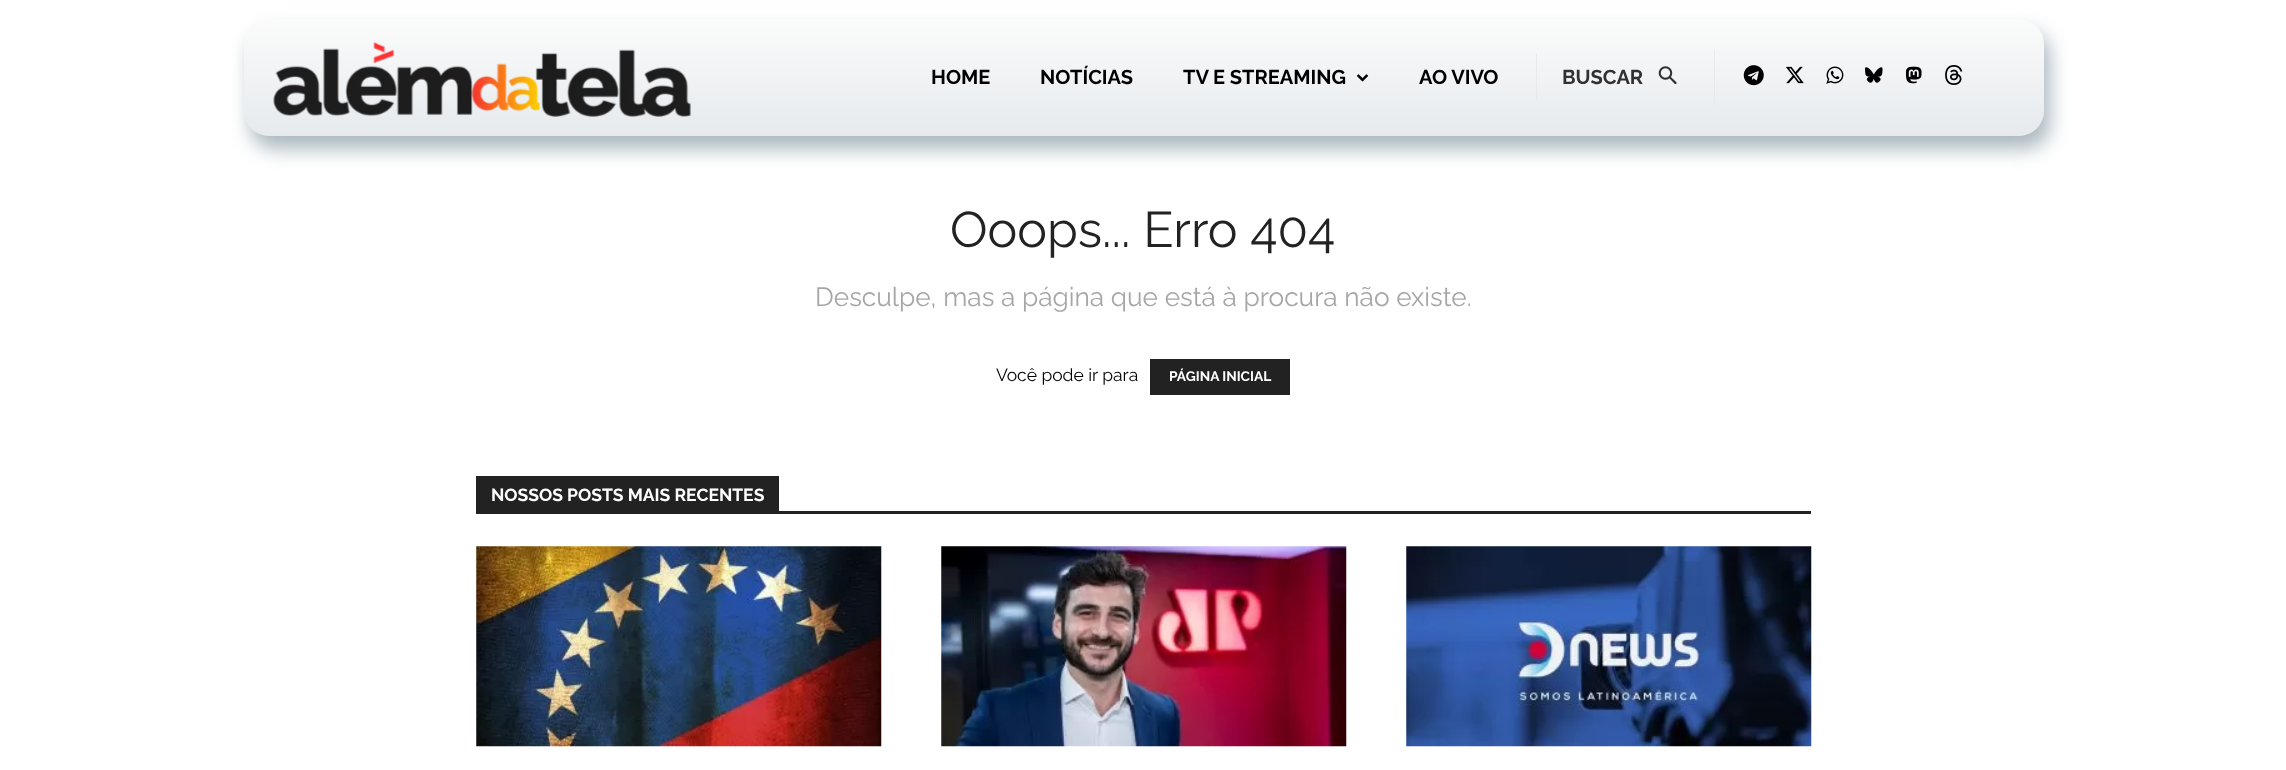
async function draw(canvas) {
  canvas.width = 2286
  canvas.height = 770
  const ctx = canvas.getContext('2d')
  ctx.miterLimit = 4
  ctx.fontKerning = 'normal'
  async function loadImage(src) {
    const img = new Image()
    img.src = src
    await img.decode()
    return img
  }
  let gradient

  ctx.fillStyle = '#fff'
  ctx.fillRect(0, 0, 2286, 770)
  ctx.fillStyle = '#abb8c0'
  ctx.filter = 'blur(9.5px)'
  ctx.beginPath()
  ctx.roundRect(250, 31, 1800, 118, 25)
  ctx.fill()
  ctx.filter = 'none'
  gradient = ctx.createLinearGradient(1144, 136, 1144, 19)
  gradient.addColorStop(0, '#e6eaed')
  gradient.addColorStop(1, '#fbfbfb')
  ctx.fillStyle = gradient
  ctx.beginPath()
  ctx.roundRect(244, 19, 1800, 117, 25)
  ctx.fill()
  ctx.drawImage(await loadImage('image0.png'), 273, 41, 418, 76)
  ctx.font = '100 20px "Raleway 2"'
  ctx.fillStyle = '#000'
  ctx.fillText('HOME', 931, 84)
  ctx.fillText('NOTÍCIAS', 1040, 84)
  ctx.fillText('TV E STREAMING', 1183, 84)
  ctx.drawImage(await loadImage('image1.png'), 1356, 74, 13, 8)
  ctx.fillText('AO VIVO', 1419, 84)
  ctx.fillStyle = '#e6eaed'
  ctx.fillRect(1536, 54, 1, 47)
  ctx.fillStyle = '#313131'
  ctx.fillText('BUSCAR', 1562, 84)
  ctx.drawImage(await loadImage('image2.png'), 1658, 66, 19, 18)
  ctx.fillStyle = '#e6eaed'
  ctx.fillRect(1714, 49, 1, 57)
  ctx.drawImage(await loadImage('image3.png'), 1743, 65, 21, 21)
  ctx.drawImage(await loadImage('image4.png'), 1786, 66, 18, 18)
  ctx.drawImage(await loadImage('image5.png'), 1826, 66, 18, 18)
  ctx.drawImage(await loadImage('image6.png'), 1865, 67, 18, 16)
  ctx.drawImage(await loadImage('image7.png'), 1905, 66, 17, 18)
  ctx.drawImage(await loadImage('image8.png'), 1945, 65, 18, 20)
  ctx.font = '100 50px Raleway'
  ctx.fillStyle = '#222'
  ctx.fillText('Ooops... Erro 404', 950, 247)
  ctx.font = '100 26.25px Raleway'
  ctx.fillStyle = '#a6a6a6'
  ctx.fillText('Desculpe, mas a página que está à procura não existe.', 815, 306)
  ctx.font = '100 17.5px Raleway'
  ctx.fillStyle = '#000'
  ctx.fillText('Você pode ir para', 996, 381)
  ctx.fillStyle = '#222'
  ctx.fillRect(1150, 359, 140, 36)
  ctx.font = '100 13.75px "Raleway 2"'
  ctx.fillStyle = '#fff'
  ctx.fillText('PÁGINA INICIAL', 1169, 381)
  ctx.fillStyle = '#222'
  ctx.fillRect(476, 511, 1335, 3)
  ctx.fillRect(476, 476, 303, 35)
  ctx.font = '100 17.5px "Raleway 2"'
  ctx.fillStyle = '#fff'
  ctx.fillText('NOSSOS POSTS MAIS RECENTES', 491, 501)
  ctx.drawImage(await loadImage('image9.png'), 476, 546, 406, 201)
  ctx.drawImage(await loadImage('image10.png'), 941, 546, 406, 201)
  ctx.drawImage(await loadImage('image11.png'), 1406, 546, 406, 201)
}

draw(document.querySelector('canvas'))
